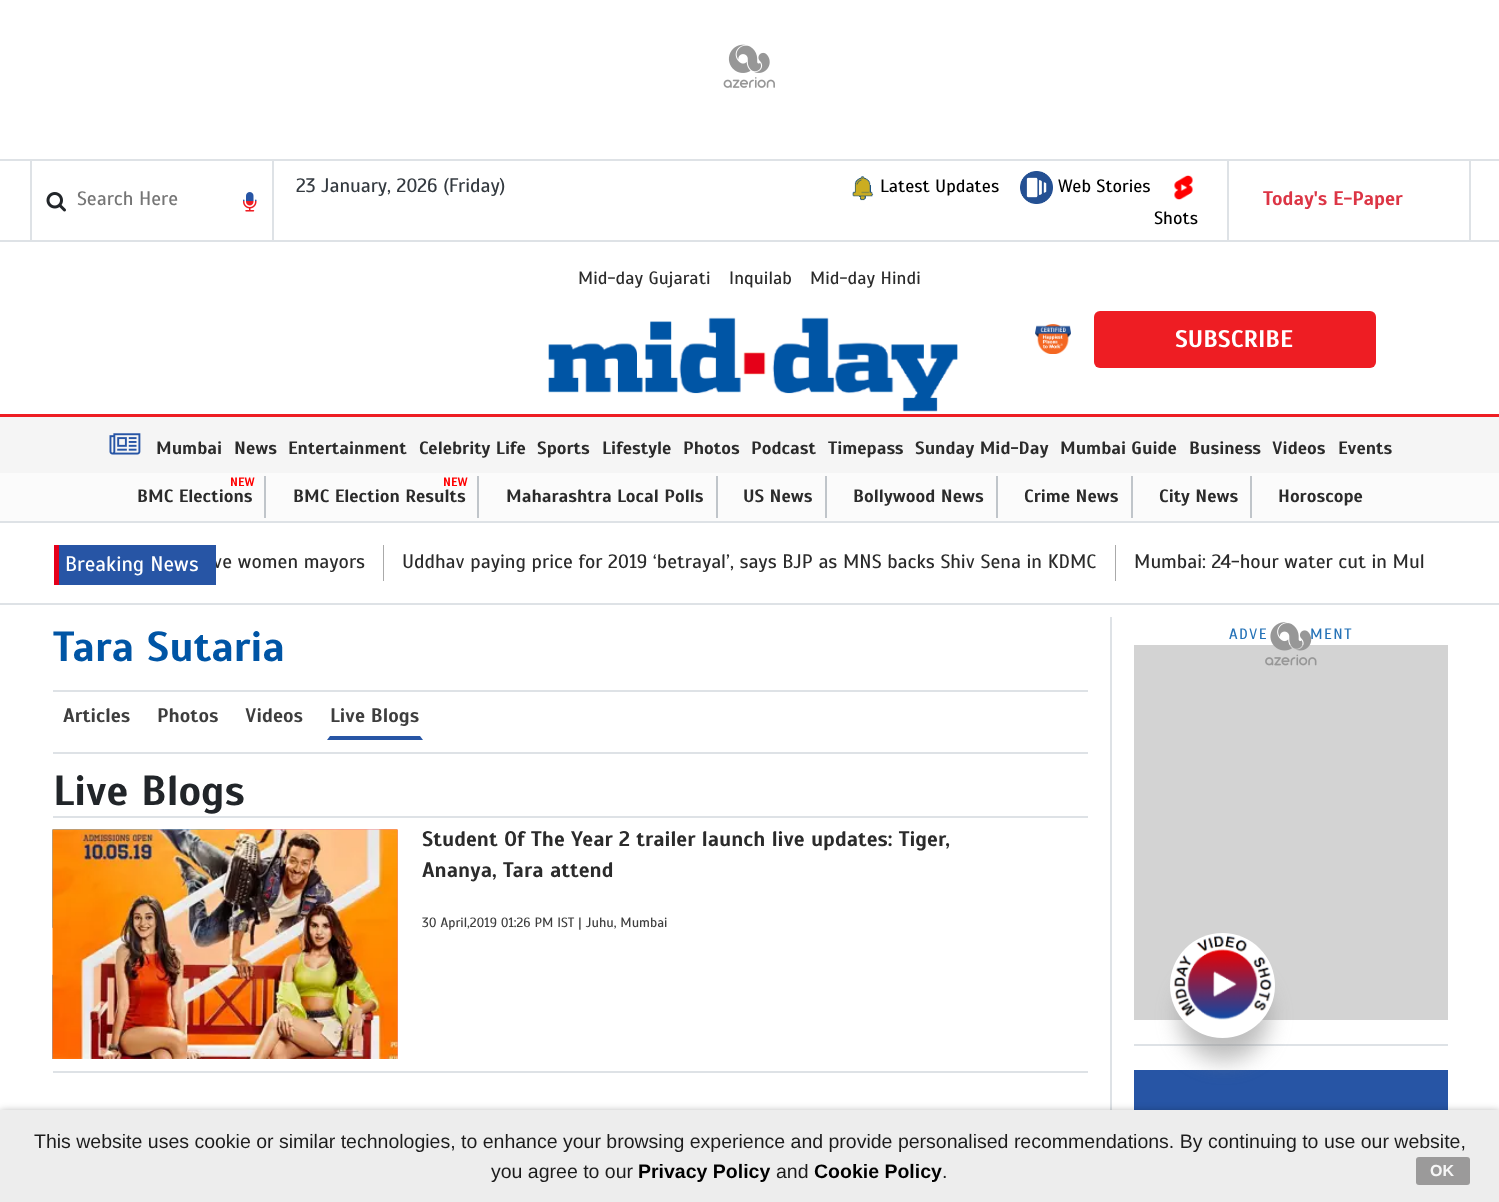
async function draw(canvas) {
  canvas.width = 1499
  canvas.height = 1202
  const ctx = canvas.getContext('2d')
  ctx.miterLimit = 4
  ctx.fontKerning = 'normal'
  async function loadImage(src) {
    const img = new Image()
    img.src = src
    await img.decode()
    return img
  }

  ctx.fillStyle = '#fff'
  ctx.fillRect(0, 0, 1499, 1202)
  ctx.drawImage(await loadImage('image0.png'), 723, 44, 52, 44)
  ctx.fillStyle = '#dee2e6'
  ctx.fillRect(0, 159, 1499, 2)
  ctx.fillRect(0, 240, 1499, 2)
  ctx.fillRect(1469, 161, 2, 79)
  ctx.fillRect(30, 161, 2, 79)
  ctx.drawImage(await loadImage('image1.png'), 46, 192, 20, 20)
  ctx.font = '19.5px Scada'
  ctx.fillStyle = '#757575'
  ctx.fillText('Search Here', 77, 205)
  ctx.drawImage(await loadImage('image2.png'), 243, 192, 14, 20)
  ctx.fillStyle = '#dee2e6'
  ctx.fillRect(1227, 161, 2, 79)
  ctx.fillRect(272, 161, 2, 79)
  ctx.fillStyle = '#343a40'
  ctx.fillText('23 January, 2026 (Friday)', 296, 192)
  ctx.drawImage(await loadImage('image3.png'), 852, 176, 22, 25)
  ctx.font = '18px Scada'
  ctx.fillStyle = '#000'
  ctx.fillText('Latest Updates', 880, 192)
  ctx.drawImage(await loadImage('image4.png'), 1020, 171, 33, 33)
  ctx.fillText('Web Stories', 1058, 192)
  ctx.drawImage(await loadImage('image5.png'), 1174, 175, 19, 25)
  ctx.fillText('Shots', 1154, 224)
  ctx.font = 'bold 19.5px Scada'
  ctx.fillStyle = '#dc3545'
  ctx.fillText('Today\'s E-Paper', 1263, 205)
  ctx.letterSpacing = '0.1px'
  ctx.font = '18px Scada'
  ctx.fillStyle = '#2b2b2b'
  ctx.fillText('Mid-day Gujarati', 578, 284)
  ctx.fillText('Inquilab', 729, 284)
  ctx.fillText('Mid-day Hindi', 810, 284)
  ctx.drawImage(await loadImage('image6.png'), 548, 317, 410, 95)
  ctx.drawImage(await loadImage('image7.png'), 1035, 324, 36, 30)
  ctx.fillStyle = '#ee1d23'
  ctx.beginPath()
  ctx.roundRect(1094, 311, 282, 57, 6)
  ctx.fill()
  ctx.letterSpacing = '0px'
  ctx.font = 'bold 24px Scada'
  ctx.fillStyle = '#fff'
  ctx.fillText('SUBSCRIBE', 1175, 347)
  ctx.fillStyle = '#ee1d23'
  ctx.fillRect(0, 414, 1499, 3)
  ctx.fillStyle = '#f5f5f5'
  ctx.fillRect(0, 417, 1499, 56)
  ctx.drawImage(await loadImage('image8.png'), 109, 433, 32, 22)
  ctx.font = 'bold 18px Scada'
  ctx.fillStyle = '#2b2b2b'
  ctx.fillText('Mumbai', 156, 454)
  ctx.fillText('News', 234, 454)
  ctx.fillText('Entertainment', 288, 454)
  ctx.fillText('Celebrity Life', 419, 454)
  ctx.fillText('Sports', 537, 454)
  ctx.fillText('Lifestyle', 602, 454)
  ctx.fillText('Photos', 683, 454)
  ctx.fillText('Podcast', 751, 454)
  ctx.fillText('Timepass', 828, 454)
  ctx.fillText('Sunday Mid-Day', 915, 454)
  ctx.fillText('Mumbai Guide', 1060, 454)
  ctx.fillText('Business', 1189, 454)
  ctx.fillText('Videos', 1272, 454)
  ctx.fillText('Events', 1338, 454)
  ctx.fillStyle = '#fbfbfb'
  ctx.fillRect(0, 473, 1499, 48)
  ctx.fillStyle = '#c0c5ca'
  ctx.fillRect(264, 476, 2, 42)
  ctx.font = 'bold 12px Scada'
  ctx.fillStyle = '#f00'
  ctx.fillText('NEW', 230, 486)
  ctx.font = 'bold 18px Scada'
  ctx.fillStyle = '#2b2b2b'
  ctx.fillText('BMC Elections', 137, 502)
  ctx.fillStyle = '#c0c5ca'
  ctx.fillRect(477, 476, 2, 42)
  ctx.font = 'bold 12px Scada'
  ctx.fillStyle = '#f00'
  ctx.fillText('NEW', 443, 486)
  ctx.font = 'bold 18px Scada'
  ctx.fillStyle = '#2b2b2b'
  ctx.fillText('BMC Election Results', 293, 502)
  ctx.fillStyle = '#c0c5ca'
  ctx.fillRect(716, 476, 2, 42)
  ctx.fillStyle = '#2b2b2b'
  ctx.fillText('Maharashtra Local Polls', 506, 502)
  ctx.fillStyle = '#c0c5ca'
  ctx.fillRect(825, 476, 2, 42)
  ctx.fillStyle = '#2b2b2b'
  ctx.fillText('US News', 743, 502)
  ctx.fillStyle = '#c0c5ca'
  ctx.fillRect(996, 476, 2, 42)
  ctx.fillStyle = '#2b2b2b'
  ctx.fillText('Bollywood News', 853, 502)
  ctx.fillStyle = '#c0c5ca'
  ctx.fillRect(1131, 476, 2, 42)
  ctx.fillStyle = '#2b2b2b'
  ctx.fillText('Crime News', 1024, 502)
  ctx.fillStyle = '#c0c5ca'
  ctx.fillRect(1250, 476, 2, 42)
  ctx.fillStyle = '#2b2b2b'
  ctx.fillText('City News', 1159, 502)
  ctx.fillText('Horoscope', 1278, 502)
  ctx.fillStyle = '#dee2e6'
  ctx.fillRect(0, 521, 1499, 2)
  ctx.fillRect(0, 603, 1499, 2)
  ctx.font = '19.5px Scada'
  ctx.fillStyle = '#2b2b2b'
  ctx.fillText('ve women mayors', 213, 568)
  ctx.fillStyle = '#2755a5'
  ctx.fillRect(59, 545, 157, 40)
  ctx.fillStyle = '#e5001a'
  ctx.fillRect(54, 545, 5, 40)
  ctx.font = '21px Scada'
  ctx.fillStyle = '#fff'
  ctx.fillText('Breaking News', 65, 571)
  ctx.fillStyle = '#aaa'
  ctx.fillRect(383, 545, 1, 36)
  ctx.fillRect(1115, 545, 1, 36)
  ctx.font = '19.5px Scada'
  ctx.fillStyle = '#2b2b2b'
  ctx.fillText('Uddhav paying price for 2019 ‘betrayal’, says BJP as MNS backs Shiv Sena in KDMC', 402, 568)
  ctx.fillText('Mumbai: 24-hour water cut in Mul', 1134, 568)
  ctx.fillStyle = '#dee2e6'
  ctx.fillRect(53, 690, 1035, 2)
  ctx.font = 'bold 42px Scada'
  ctx.fillStyle = '#0055a5'
  ctx.fillText('Tara Sutaria', 53, 661)
  ctx.fillStyle = '#dee2e6'
  ctx.fillRect(53, 752, 1035, 2)
  ctx.font = 'bold 19.5px Scada'
  ctx.fillStyle = '#3e3e3e'
  ctx.fillText('Articles', 63, 722)
  ctx.fillText('Photos', 157, 722)
  ctx.fillText('Videos', 245, 722)
  ctx.fillStyle = '#2755a5'
  ctx.beginPath()
  ctx.moveTo(423, 740)
  ctx.lineTo(327, 740)
  ctx.lineTo(330, 736)
  ctx.lineTo(420, 736)
  ctx.closePath()
  ctx.fill()
  ctx.fillStyle = '#3e3e3e'
  ctx.fillText('Live Blogs', 330, 722)
  ctx.fillStyle = '#dee2e6'
  ctx.fillRect(53, 816, 1035, 2)
  ctx.font = 'bold 42px Scada'
  ctx.fillStyle = '#212529'
  ctx.fillText('Live Blogs', 53, 805)
  ctx.fillStyle = '#dee2e6'
  ctx.fillRect(53, 1071, 1035, 2)
  ctx.drawImage(await loadImage('image9.png'), 52, 829, 346, 230)
  ctx.drawImage(await loadImage('image10.png'), 52, 829, 346, 230)
  ctx.font = 'bold 21px Scada'
  ctx.fillStyle = '#2b2b2b'
  ctx.fillText('Student Of The Year 2 trailer launch live updates: Tiger,', 422, 846)
  ctx.fillText('Ananya, Tara attend', 422, 877)
  ctx.font = '13.5px Scada'
  ctx.fillStyle = '#3e3e3e'
  ctx.fillText('30 April,2019 01:26 PM IST | Juhu, Mumbai', 422, 927)
  ctx.fillStyle = '#dee2e6'
  ctx.fillRect(1110, 617, 2, 493)
  ctx.fillStyle = '#d3d3d3'
  ctx.fillRect(1134, 645, 314, 375)
  ctx.letterSpacing = '1.5px'
  ctx.font = '15px Scada'
  ctx.fillStyle = '#2572b7'
  ctx.fillText('ADVE', 1229, 639)
  ctx.fillText('MENT', 1310, 639)
  ctx.drawImage(await loadImage('image11.png'), 1265, 622, 52, 44)
  ctx.fillStyle = '#dee2e6'
  ctx.fillRect(1134, 1044, 314, 2)
  ctx.fillStyle = '#2755a5'
  ctx.fillRect(1134, 1070, 314, 40)
  ctx.fillStyle = '#80808082'
  ctx.filter = 'blur(11px)'
  ctx.beginPath()
  ctx.roundRect(1179, 971, 90, 90, 45)
  ctx.fill()
  ctx.filter = 'none'
  ctx.fillStyle = '#fff'
  ctx.beginPath()
  ctx.arc(1222.5, 985.5, 52.5, 0, 2 * Math.PI)
  ctx.fill()
  ctx.drawImage(await loadImage('image12.png'), 1174, 935, 98, 85)
  ctx.fillStyle = '#00000066'
  ctx.filter = 'blur(4px)'
  ctx.beginPath()
  ctx.rect(0, 1112, 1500, 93)
  ctx.fill()
  ctx.filter = 'none'
  ctx.fillStyle = '#ededed'
  ctx.fillRect(0, 1110, 1499, 92)
  ctx.letterSpacing = '0px'
  ctx.font = '19.5px Liberation Sans'
  ctx.fillStyle = '#1c1c1c'
  ctx.fillText('This website uses cookie or similar technologies, to enhance your browsing experience and provide personalised recommendations. By continuing to use our website,', 34, 1148)
  ctx.fillText('you agree to our', 491, 1178)
  ctx.font = 'bold 19.5px Liberation Sans'
  ctx.fillStyle = '#000'
  ctx.fillText('Privacy Policy', 638, 1178)
  ctx.font = '19.5px Liberation Sans'
  ctx.fillStyle = '#1c1c1c'
  ctx.fillText('and', 776, 1178)
  ctx.font = 'bold 19.5px Liberation Sans'
  ctx.fillStyle = '#000'
  ctx.fillText('Cookie Policy', 814, 1178)
  ctx.font = '19.5px Liberation Sans'
  ctx.fillStyle = '#1c1c1c'
  ctx.fillText('.', 942, 1178)
  ctx.fillStyle = '#9b9a9a'
  ctx.beginPath()
  ctx.roundRect(1416, 1157, 54, 28, 3)
  ctx.fill()
  ctx.font = 'bold 16px Liberation Sans'
  ctx.fillStyle = '#f6f6f6'
  ctx.fillText('OK', 1430, 1176)
}

draw(document.querySelector('canvas'))
